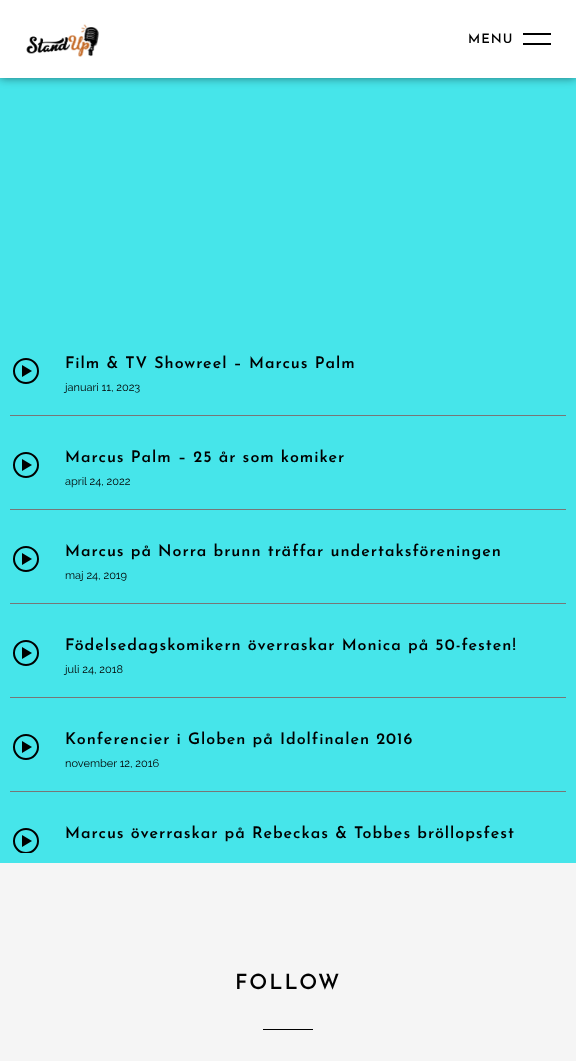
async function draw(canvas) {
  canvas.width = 576
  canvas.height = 1061
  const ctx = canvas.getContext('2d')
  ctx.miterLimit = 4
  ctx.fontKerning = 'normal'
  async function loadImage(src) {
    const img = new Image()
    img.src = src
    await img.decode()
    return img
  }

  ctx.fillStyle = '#46e5ea'
  ctx.fillRect(0, 0, 576, 1061)
  ctx.fillStyle = '#00000080'
  ctx.filter = 'blur(5px)'
  ctx.beginPath()
  ctx.rect(0, 0, 576, 78)
  ctx.fill()
  ctx.filter = 'none'
  ctx.fillStyle = '#fff'
  ctx.fillRect(0, 0, 576, 78)
  ctx.drawImage(await loadImage('image0.png'), 26, 24, 73, 33)
  ctx.letterSpacing = '1px'
  ctx.font = '600 13px Josefin Sans'
  ctx.fillStyle = '#000'
  ctx.fillText('MENU', 468, 43)
  ctx.fillRect(523, 33, 28, 2)
  ctx.fillRect(523, 43, 28, 2)
  ctx.fillStyle = '#777'
  ctx.fillRect(10, 415, 556, 1)
  ctx.beginPath()
  ctx.arc(26, 371, 12, 0, 2 * Math.PI)
  ctx.strokeStyle = '#000'
  ctx.lineWidth = 2
  ctx.stroke()
  ctx.fillStyle = '#000'
  ctx.beginPath()
  ctx.moveTo(22, 365)
  ctx.lineTo(32, 371)
  ctx.lineTo(22, 377)
  ctx.closePath()
  ctx.fill()
  ctx.font = '600 16px Josefin Sans'
  ctx.fillText('Film & TV Showreel – Marcus Palm', 65, 368)
  ctx.letterSpacing = '0px'
  ctx.font = '100 11px Raleway'
  ctx.fillText('januari 11, 2023', 65, 391)
  ctx.fillStyle = '#777'
  ctx.fillRect(10, 509, 556, 1)
  ctx.beginPath()
  ctx.arc(26, 465, 12, 0, 2 * Math.PI)
  ctx.stroke()
  ctx.fillStyle = '#000'
  ctx.beginPath()
  ctx.moveTo(22, 459)
  ctx.lineTo(32, 465)
  ctx.lineTo(22, 471)
  ctx.closePath()
  ctx.fill()
  ctx.letterSpacing = '1px'
  ctx.font = '600 16px Josefin Sans'
  ctx.fillText('Marcus Palm – 25 år som komiker', 65, 462)
  ctx.letterSpacing = '0px'
  ctx.font = '100 11px Raleway'
  ctx.fillText('april 24, 2022', 65, 485)
  ctx.fillStyle = '#777'
  ctx.fillRect(10, 603, 556, 1)
  ctx.beginPath()
  ctx.arc(26, 559, 12, 0, 2 * Math.PI)
  ctx.stroke()
  ctx.fillStyle = '#000'
  ctx.beginPath()
  ctx.moveTo(22, 553)
  ctx.lineTo(32, 559)
  ctx.lineTo(22, 565)
  ctx.closePath()
  ctx.fill()
  ctx.letterSpacing = '1px'
  ctx.font = '600 16px Josefin Sans'
  ctx.fillText('Marcus på Norra brunn träffar undertaksföreningen', 65, 556)
  ctx.letterSpacing = '0px'
  ctx.font = '100 11px Raleway'
  ctx.fillText('maj 24, 2019', 65, 579)
  ctx.fillStyle = '#777'
  ctx.fillRect(10, 697, 556, 1)
  ctx.beginPath()
  ctx.arc(26, 653, 12, 0, 2 * Math.PI)
  ctx.stroke()
  ctx.fillStyle = '#000'
  ctx.beginPath()
  ctx.moveTo(22, 647)
  ctx.lineTo(32, 653)
  ctx.lineTo(22, 659)
  ctx.closePath()
  ctx.fill()
  ctx.letterSpacing = '1px'
  ctx.font = '600 16px Josefin Sans'
  ctx.fillText('Födelsedagskomikern överraskar Monica på 50-festen!', 65, 650)
  ctx.letterSpacing = '0px'
  ctx.font = '100 11px Raleway'
  ctx.fillText('juli 24, 2018', 65, 673)
  ctx.fillStyle = '#777'
  ctx.fillRect(10, 791, 556, 1)
  ctx.beginPath()
  ctx.arc(26, 747, 12, 0, 2 * Math.PI)
  ctx.stroke()
  ctx.fillStyle = '#000'
  ctx.beginPath()
  ctx.moveTo(22, 741)
  ctx.lineTo(32, 747)
  ctx.lineTo(22, 753)
  ctx.closePath()
  ctx.fill()
  ctx.letterSpacing = '1px'
  ctx.font = '600 16px Josefin Sans'
  ctx.fillText('Konferencier i Globen på Idolfinalen 2016', 65, 744)
  ctx.letterSpacing = '0px'
  ctx.font = '100 11px Raleway'
  ctx.fillText('november 12, 2016', 65, 767)
  ctx.save()
  ctx.beginPath()
  ctx.rect(10, 322, 556, 531)
  ctx.clip()
  ctx.beginPath()
  ctx.arc(26, 841, 12, 0, 2 * Math.PI)
  ctx.stroke()
  ctx.restore()
  ctx.beginPath()
  ctx.moveTo(22, 835)
  ctx.lineTo(32, 841)
  ctx.lineTo(22, 847)
  ctx.closePath()
  ctx.fill()
  ctx.letterSpacing = '1px'
  ctx.font = '600 16px Josefin Sans'
  ctx.fillText('Marcus överraskar på Rebeckas & Tobbes bröllopsfest', 65, 838)
  ctx.fillStyle = '#f5f5f5'
  ctx.fillRect(0, 863, 576, 198)
  ctx.letterSpacing = '2px'
  ctx.font = '600 21px Josefin Sans'
  ctx.fillStyle = '#000'
  ctx.fillText('FOLLOW', 235, 989)
  ctx.fillRect(263, 1029, 50, 1)
}

draw(document.querySelector('canvas'))
